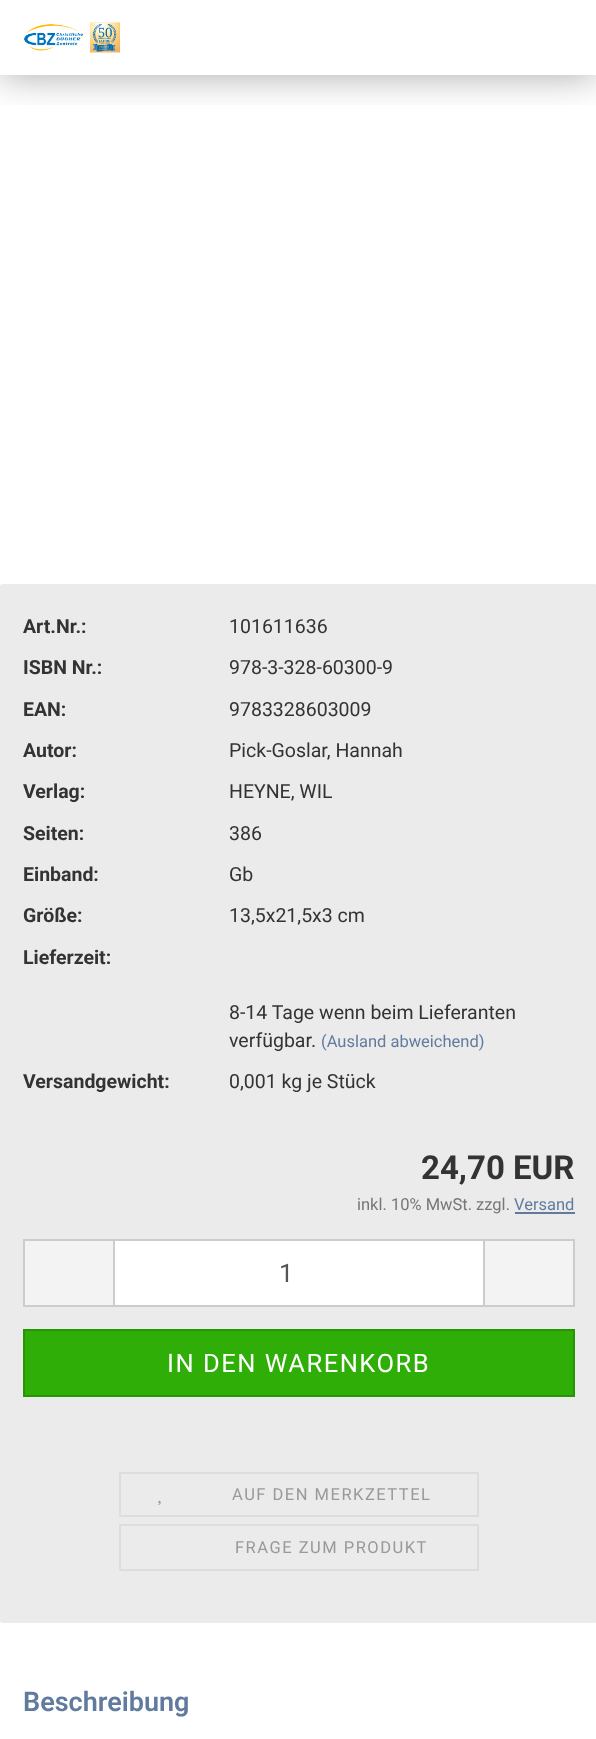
async function draw(canvas) {
  canvas.width = 596
  canvas.height = 1739
  const ctx = canvas.getContext('2d')
  ctx.miterLimit = 4
  ctx.fontKerning = 'normal'
  async function loadImage(src) {
    const img = new Image()
    img.src = src
    await img.decode()
    return img
  }

  ctx.fillStyle = '#fff'
  ctx.fillRect(0, 0, 596, 1739)
  ctx.save()
  ctx.beginPath()
  ctx.rect(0, 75, 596, 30)
  ctx.clip()
  ctx.fillStyle = '#00000059'
  ctx.filter = 'blur(19px)'
  ctx.beginPath()
  ctx.rect(0, 0, 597, 75)
  ctx.fill()
  ctx.filter = 'none'
  ctx.restore()
  ctx.drawImage(await loadImage('image0.png'), 24, 22, 96, 31)
  ctx.fillStyle = '#ebebeb'
  ctx.beginPath()
  ctx.roundRect(0, 584, 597, 1039, 3)
  ctx.fill()
  ctx.font = 'bold 19.5px Roboto'
  ctx.fillStyle = '#333'
  ctx.fillText('Art.Nr.:', 23, 633)
  ctx.font = '19.5px Roboto'
  ctx.fillText('101611636', 229, 633)
  ctx.font = 'bold 19.5px Roboto'
  ctx.fillText('ISBN Nr.:', 23, 674)
  ctx.font = '19.5px Roboto'
  ctx.fillText('978-3-328-60300-9', 229, 674)
  ctx.font = 'bold 19.5px Roboto'
  ctx.fillText('EAN:', 23, 716)
  ctx.font = '19.5px Roboto'
  ctx.fillText('9783328603009', 229, 716)
  ctx.font = 'bold 19.5px Roboto'
  ctx.fillText('Autor:', 23, 757)
  ctx.font = '19.5px Roboto'
  ctx.fillText('Pick-Goslar, Hannah', 229, 757)
  ctx.font = 'bold 19.5px Roboto'
  ctx.fillText('Verlag:', 23, 798)
  ctx.font = '19.5px Roboto'
  ctx.fillText('HEYNE, WIL', 229, 798)
  ctx.font = 'bold 19.5px Roboto'
  ctx.fillText('Seiten:', 23, 840)
  ctx.font = '19.5px Roboto'
  ctx.fillText('386', 229, 840)
  ctx.font = 'bold 19.5px Roboto'
  ctx.fillText('Einband:', 23, 881)
  ctx.font = '19.5px Roboto'
  ctx.fillText('Gb', 229, 881)
  ctx.font = 'bold 19.5px Roboto'
  ctx.fillText('Größe:', 23, 922)
  ctx.font = '19.5px Roboto'
  ctx.fillText('13,5x21,5x3 cm', 229, 922)
  ctx.font = 'bold 19.5px Roboto'
  ctx.fillText('Lieferzeit:', 23, 964)
  ctx.font = '19.5px Roboto'
  ctx.fillText('8-14 Tage wenn beim Lieferanten', 229, 1019)
  ctx.fillText('verfügbar.', 229, 1047)
  ctx.font = '16.5px Roboto'
  ctx.fillStyle = '#617b9f'
  ctx.fillText('(Ausland abweichend)', 321, 1047)
  ctx.font = 'bold 19.5px Roboto'
  ctx.fillStyle = '#333'
  ctx.fillText('Versandgewicht:', 23, 1088)
  ctx.font = '19.5px Roboto'
  ctx.fillText('0,001 kg je Stück', 229, 1088)
  ctx.font = 'bold 33px Roboto'
  ctx.fillText('24,70 EUR', 421, 1179)
  ctx.font = '16.5px Roboto'
  ctx.fillStyle = '#777'
  ctx.fillText('inkl. 10% MwSt. zzgl.', 357, 1210)
  ctx.fillStyle = '#617b9f'
  ctx.fillText('Versand', 514, 1210)
  ctx.fillRect(515, 1212, 60, 2)
  ctx.fillStyle = '#f3f3f3'
  ctx.fillRect(25, 1241, 88, 64)
  ctx.fillStyle = '#ccc'
  ctx.fillRect(23, 1239, 90, 2)
  ctx.fillRect(23, 1305, 90, 2)
  ctx.fillRect(23, 1239, 2, 68)
  ctx.fillStyle = '#fff'
  ctx.beginPath()
  ctx.rect(114, 1240, 370, 66)
  ctx.fill()
  ctx.strokeStyle = '#ccc'
  ctx.lineWidth = 2
  ctx.stroke()
  ctx.font = '25.5px Roboto'
  ctx.fillStyle = '#555'
  ctx.fillText('1', 279, 1282)
  ctx.fillStyle = '#f3f3f3'
  ctx.fillRect(485, 1241, 88, 64)
  ctx.fillStyle = '#ccc'
  ctx.fillRect(485, 1239, 90, 2)
  ctx.fillRect(573, 1239, 2, 68)
  ctx.fillRect(485, 1305, 90, 2)
  ctx.fillStyle = '#2eae06'
  ctx.beginPath()
  ctx.rect(24, 1330, 550, 66)
  ctx.fill()
  ctx.strokeStyle = '#279505'
  ctx.stroke()
  ctx.letterSpacing = '1.5px'
  ctx.fillStyle = '#fff'
  ctx.fillText('IN DEN WARENKORB', 167, 1372)
  ctx.strokeStyle = '#ddd'
  ctx.strokeRect(120, 1473, 358, 43)
  ctx.font = '16.5px Roboto'
  ctx.fillStyle = '#999'
  ctx.fillText('AUF DEN MERKZETTEL', 232, 1500)
  ctx.drawImage(await loadImage('image1.png'), 158, 1500, 3, 5)
  ctx.strokeRect(120, 1525, 358, 45)
  ctx.fillText('FRAGE ZUM PRODUKT', 235, 1553)
  ctx.letterSpacing = '0px'
  ctx.font = '600 27px Roboto'
  ctx.fillStyle = '#617b9f'
  ctx.fillText('Beschreibung', 23, 1711)
}

draw(document.querySelector('canvas'))
